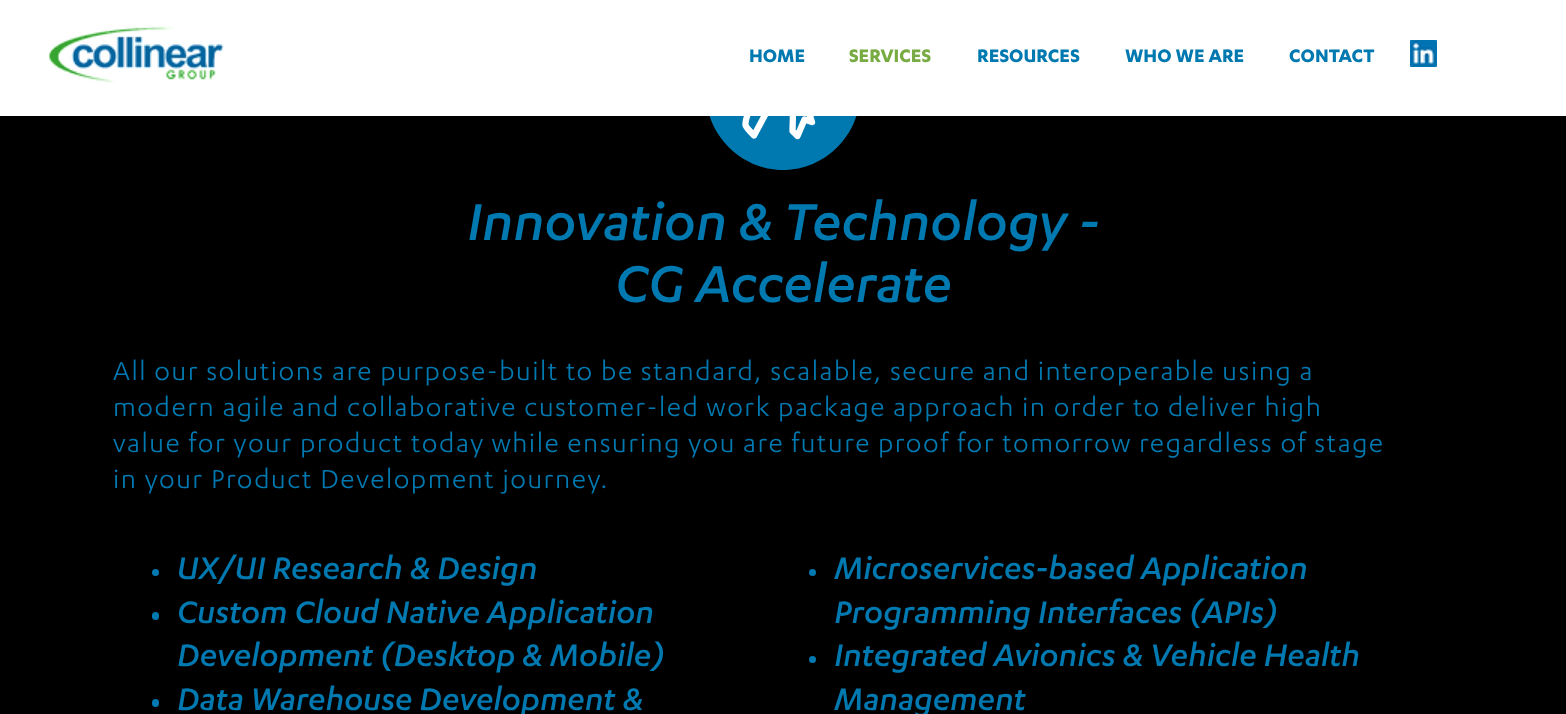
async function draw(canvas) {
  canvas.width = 1566
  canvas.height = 714
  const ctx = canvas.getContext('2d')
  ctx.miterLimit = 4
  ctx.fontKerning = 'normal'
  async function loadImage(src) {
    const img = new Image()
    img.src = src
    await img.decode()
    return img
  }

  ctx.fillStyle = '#000'
  ctx.fillRect(0, 0, 1566, 714)
  ctx.fillStyle = '#0079b0'
  ctx.beginPath()
  ctx.moveTo(860, 93)
  ctx.bezierCurveTo(860, 135, 825, 170, 783, 170)
  ctx.bezierCurveTo(741, 170, 706, 135, 706, 93)
  ctx.bezierCurveTo(706, 51, 741, 16, 783, 16)
  ctx.bezierCurveTo(825, 16, 860, 51, 860, 93)
  ctx.closePath()
  ctx.fill()
  ctx.beginPath()
  ctx.moveTo(757.5, 77.5)
  ctx.lineTo(749.5, 107.5)
  ctx.bezierCurveTo(744.5, 126.5, 742, 123.5, 754, 135.5)
  ctx.lineTo(775.5, 95.5)
  ctx.strokeStyle = '#fff'
  ctx.lineWidth = 6.3
  ctx.lineCap = 'round'
  ctx.lineJoin = 'round'
  ctx.stroke()
  ctx.beginPath()
  ctx.moveTo(812, 122)
  ctx.lineTo(804.5, 119.5)
  ctx.lineTo(797.5, 136)
  ctx.lineTo(792.5, 131)
  ctx.lineTo(793, 112.5)
  ctx.lineTo(740.5, 60)
  ctx.bezierCurveTo(737.5, 57.5, 737.5, 53, 740, 50)
  ctx.bezierCurveTo(743, 47.5, 747.5, 47.5, 750, 50.5)
  ctx.lineTo(802, 103)
  ctx.lineTo(821, 102.5)
  ctx.lineTo(826, 107.5)
  ctx.lineTo(809.5, 115)
  ctx.closePath()
  ctx.stroke()
  ctx.fillStyle = '#fff'
  ctx.fillRect(0, 0, 1566, 116)
  ctx.drawImage(await loadImage('image0.png'), 48, 26, 176, 57)
  ctx.font = 'bold 21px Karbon'
  ctx.fillStyle = '#0079b0'
  ctx.fillText('HOME', 749, 62)
  ctx.fillStyle = '#78ab42'
  ctx.fillText('SERVICES', 849, 62)
  ctx.fillStyle = '#0079b0'
  ctx.fillText('RESOURCES', 977, 62)
  ctx.fillText('WHO WE ARE', 1125, 62)
  ctx.fillText('CONTACT', 1289, 62)
  ctx.drawImage(await loadImage('image1.png'), 1410, 40, 27, 27)
  ctx.font = 'italic 500 60px Karbon'
  ctx.fillText('Innovation & Technology -', 467, 240)
  ctx.fillText('CG Accelerate', 615, 302)
  ctx.letterSpacing = '1.5px'
  ctx.font = '30px Karbon'
  ctx.fillText('All our solutions are purpose-built to be standard, scalable, secure and interoperable using a', 113, 380)
  ctx.fillText('modern agile and collaborative customer-led work package approach in order to deliver high', 113, 416)
  ctx.fillText('value for your product today while ensuring you are future proof for tomorrow regardless of stage', 113, 452)
  ctx.fillText('in your Product Development journey.', 113, 488)
  ctx.beginPath()
  ctx.arc(155.5, 572.5, 3.5, 0, 2 * Math.PI)
  ctx.fill()
  ctx.letterSpacing = '0px'
  ctx.font = 'italic 500 36px Karbon'
  ctx.fillText('UX/UI Research & Design', 177, 579)
  ctx.beginPath()
  ctx.roundRect(152, 612, 7, 8, 3.5)
  ctx.fill()
  ctx.fillText('Custom Cloud Native Application', 177, 623)
  ctx.fillText('Development (Desktop & Mobile)', 177, 666)
  ctx.beginPath()
  ctx.roundRect(152, 699, 7, 8, 3.5)
  ctx.fill()
  ctx.fillText('Data Warehouse Development &', 177, 710)
  ctx.beginPath()
  ctx.arc(812.5, 572.5, 3.5, 0, 2 * Math.PI)
  ctx.fill()
  ctx.fillText('Microservices-based Application', 834, 579)
  ctx.fillText('Programming Interfaces (APIs)', 834, 623)
  ctx.beginPath()
  ctx.arc(812.5, 659.5, 3.5, 0, 2 * Math.PI)
  ctx.fill()
  ctx.fillText('Integrated Avionics & Vehicle Health', 834, 666)
  ctx.fillText('Management', 834, 710)
}

draw(document.querySelector('canvas'))
